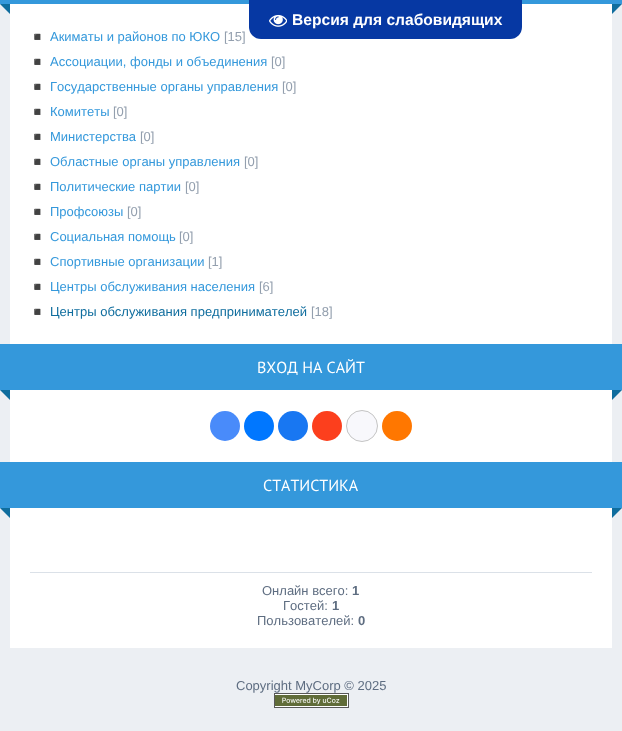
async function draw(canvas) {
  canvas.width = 622
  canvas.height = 731
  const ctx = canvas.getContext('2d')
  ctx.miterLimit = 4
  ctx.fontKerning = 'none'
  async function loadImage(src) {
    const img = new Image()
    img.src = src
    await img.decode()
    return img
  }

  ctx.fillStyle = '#eceff3'
  ctx.fillRect(0, 0, 622, 731)
  ctx.fillStyle = '#fff'
  ctx.fillRect(10, 4, 602, 644)
  ctx.fillStyle = '#3498db'
  ctx.fillRect(0, 0, 622, 4)
  ctx.fillStyle = '#0638a3'
  ctx.beginPath()
  ctx.roundRect(249, 0, 273, 39, [0, 0, 12, 12])
  ctx.fill()
  ctx.drawImage(await loadImage('image0.png'), 269, 14, 18, 13)
  ctx.font = 'bold 15.6px Liberation Sans'
  ctx.fillStyle = '#fff'
  ctx.fillText('Версия для слабовидящих', 292, 25)
  ctx.fillStyle = '#0f6d9e'
  ctx.beginPath()
  ctx.moveTo(0, 4)
  ctx.lineTo(10, 4)
  ctx.lineTo(10, 14)
  ctx.closePath()
  ctx.fill()
  ctx.beginPath()
  ctx.moveTo(612, 4)
  ctx.lineTo(622, 4)
  ctx.lineTo(612, 14)
  ctx.closePath()
  ctx.fill()
  ctx.font = '12px Noto Color Emoji'
  ctx.fillStyle = '#dadddf'
  ctx.fillText('◾', 30, 41)
  ctx.font = '13px Liberation Sans'
  ctx.fillStyle = '#3498db'
  ctx.fillText('Акиматы и районов по ЮКО', 50, 41)
  ctx.fillStyle = '#939fae'
  ctx.fillText('[15]', 224, 41)
  ctx.font = '12px Noto Color Emoji'
  ctx.fillStyle = '#dadddf'
  ctx.fillText('◾', 30, 66)
  ctx.font = '13px Liberation Sans'
  ctx.fillStyle = '#3498db'
  ctx.fillText('Ассоциации, фонды и объединения', 50, 66)
  ctx.fillStyle = '#939fae'
  ctx.fillText('[0]', 271, 66)
  ctx.font = '12px Noto Color Emoji'
  ctx.fillStyle = '#dadddf'
  ctx.fillText('◾', 30, 91)
  ctx.font = '13px Liberation Sans'
  ctx.fillStyle = '#3498db'
  ctx.fillText('Государственные органы управления', 50, 91)
  ctx.fillStyle = '#939fae'
  ctx.fillText('[0]', 282, 91)
  ctx.font = '12px Noto Color Emoji'
  ctx.fillStyle = '#dadddf'
  ctx.fillText('◾', 30, 116)
  ctx.font = '13px Liberation Sans'
  ctx.fillStyle = '#3498db'
  ctx.fillText('Комитеты', 50, 116)
  ctx.fillStyle = '#939fae'
  ctx.fillText('[0]', 113, 116)
  ctx.font = '12px Noto Color Emoji'
  ctx.fillStyle = '#dadddf'
  ctx.fillText('◾', 30, 141)
  ctx.font = '13px Liberation Sans'
  ctx.fillStyle = '#3498db'
  ctx.fillText('Министерства', 50, 141)
  ctx.fillStyle = '#939fae'
  ctx.fillText('[0]', 140, 141)
  ctx.font = '12px Noto Color Emoji'
  ctx.fillStyle = '#dadddf'
  ctx.fillText('◾', 30, 166)
  ctx.font = '13px Liberation Sans'
  ctx.fillStyle = '#3498db'
  ctx.fillText('Областные органы управления', 50, 166)
  ctx.fillStyle = '#939fae'
  ctx.fillText('[0]', 244, 166)
  ctx.font = '12px Noto Color Emoji'
  ctx.fillStyle = '#dadddf'
  ctx.fillText('◾', 30, 191)
  ctx.font = '13px Liberation Sans'
  ctx.fillStyle = '#3498db'
  ctx.fillText('Политические партии', 50, 191)
  ctx.fillStyle = '#939fae'
  ctx.fillText('[0]', 185, 191)
  ctx.font = '12px Noto Color Emoji'
  ctx.fillStyle = '#dadddf'
  ctx.fillText('◾', 30, 216)
  ctx.font = '13px Liberation Sans'
  ctx.fillStyle = '#3498db'
  ctx.fillText('Профсоюзы', 50, 216)
  ctx.fillStyle = '#939fae'
  ctx.fillText('[0]', 127, 216)
  ctx.font = '12px Noto Color Emoji'
  ctx.fillStyle = '#dadddf'
  ctx.fillText('◾', 30, 241)
  ctx.font = '13px Liberation Sans'
  ctx.fillStyle = '#3498db'
  ctx.fillText('Социальная помощь', 50, 241)
  ctx.fillStyle = '#939fae'
  ctx.fillText('[0]', 179, 241)
  ctx.font = '12px Noto Color Emoji'
  ctx.fillStyle = '#dadddf'
  ctx.fillText('◾', 30, 266)
  ctx.font = '13px Liberation Sans'
  ctx.fillStyle = '#3498db'
  ctx.fillText('Спортивные организации', 50, 266)
  ctx.fillStyle = '#939fae'
  ctx.fillText('[1]', 208, 266)
  ctx.font = '12px Noto Color Emoji'
  ctx.fillStyle = '#dadddf'
  ctx.fillText('◾', 30, 291)
  ctx.font = '13px Liberation Sans'
  ctx.fillStyle = '#3498db'
  ctx.fillText('Центры обслуживания населения', 50, 291)
  ctx.fillStyle = '#939fae'
  ctx.fillText('[6]', 259, 291)
  ctx.font = '12px Noto Color Emoji'
  ctx.fillText('◾', 30, 316)
  ctx.font = '13px Liberation Sans'
  ctx.fillStyle = '#0f6d9e'
  ctx.fillText('Центры обслуживания предпринимателей', 50, 316)
  ctx.fillStyle = '#939fae'
  ctx.fillText('[18]', 311, 316)
  ctx.fillStyle = '#3498db'
  ctx.fillRect(0, 344, 622, 46)
  ctx.font = '16px PT Sans'
  ctx.fillStyle = '#fff'
  ctx.fillText('ВХОД НА САЙТ', 257, 373)
  ctx.fillStyle = '#0f6d9e'
  ctx.beginPath()
  ctx.moveTo(0, 390)
  ctx.lineTo(10, 390)
  ctx.lineTo(10, 400)
  ctx.closePath()
  ctx.fill()
  ctx.beginPath()
  ctx.moveTo(612, 390)
  ctx.lineTo(622, 390)
  ctx.lineTo(612, 400)
  ctx.closePath()
  ctx.fill()
  ctx.fillStyle = '#498bfa'
  ctx.beginPath()
  ctx.arc(225, 426, 15, 0, 2 * Math.PI)
  ctx.fill()
  ctx.fillStyle = '#07f'
  ctx.beginPath()
  ctx.arc(259, 426, 15, 0, 2 * Math.PI)
  ctx.fill()
  ctx.fillStyle = '#1877f2'
  ctx.beginPath()
  ctx.arc(293, 426, 15, 0, 2 * Math.PI)
  ctx.fill()
  ctx.fillStyle = '#fc3f1d'
  ctx.beginPath()
  ctx.arc(327, 426, 15, 0, 2 * Math.PI)
  ctx.fill()
  ctx.fillStyle = '#f8f8fc'
  ctx.beginPath()
  ctx.arc(362, 426, 15.5, 0, 2 * Math.PI)
  ctx.fill()
  ctx.strokeStyle = '#c4c4c4'
  ctx.stroke()
  ctx.fillStyle = '#f70'
  ctx.beginPath()
  ctx.arc(397, 426, 15, 0, 2 * Math.PI)
  ctx.fill()
  ctx.fillStyle = '#3498db'
  ctx.fillRect(0, 462, 622, 46)
  ctx.fillStyle = '#fff'
  ctx.fillText('СТАТИСТИКА', 263, 491)
  ctx.fillStyle = '#0f6d9e'
  ctx.beginPath()
  ctx.moveTo(0, 508)
  ctx.lineTo(10, 508)
  ctx.lineTo(10, 518)
  ctx.closePath()
  ctx.fill()
  ctx.beginPath()
  ctx.moveTo(612, 508)
  ctx.lineTo(622, 508)
  ctx.lineTo(612, 518)
  ctx.closePath()
  ctx.fill()
  ctx.fillStyle = '#dbe1e8'
  ctx.fillRect(30, 572, 562, 1)
  ctx.font = '13px Liberation Sans'
  ctx.fillStyle = '#5e6d81'
  ctx.fillText('Онлайн всего:', 262, 595)
  ctx.font = 'bold 13px Liberation Sans'
  ctx.fillText('1', 352, 595)
  ctx.font = '13px Liberation Sans'
  ctx.fillText('Гостей:', 283, 610)
  ctx.font = 'bold 13px Liberation Sans'
  ctx.fillText('1', 332, 610)
  ctx.font = '13px Liberation Sans'
  ctx.fillText('Пользователей:', 257, 625)
  ctx.font = 'bold 13px Liberation Sans'
  ctx.fillText('0', 358, 625)
  ctx.font = '13px Liberation Sans'
  ctx.fillText('Copyright MyCorp © 2025', 236, 690)
  ctx.drawImage(await loadImage('image1.png'), 274, 693, 75, 15)
}

draw(document.querySelector('canvas'))
